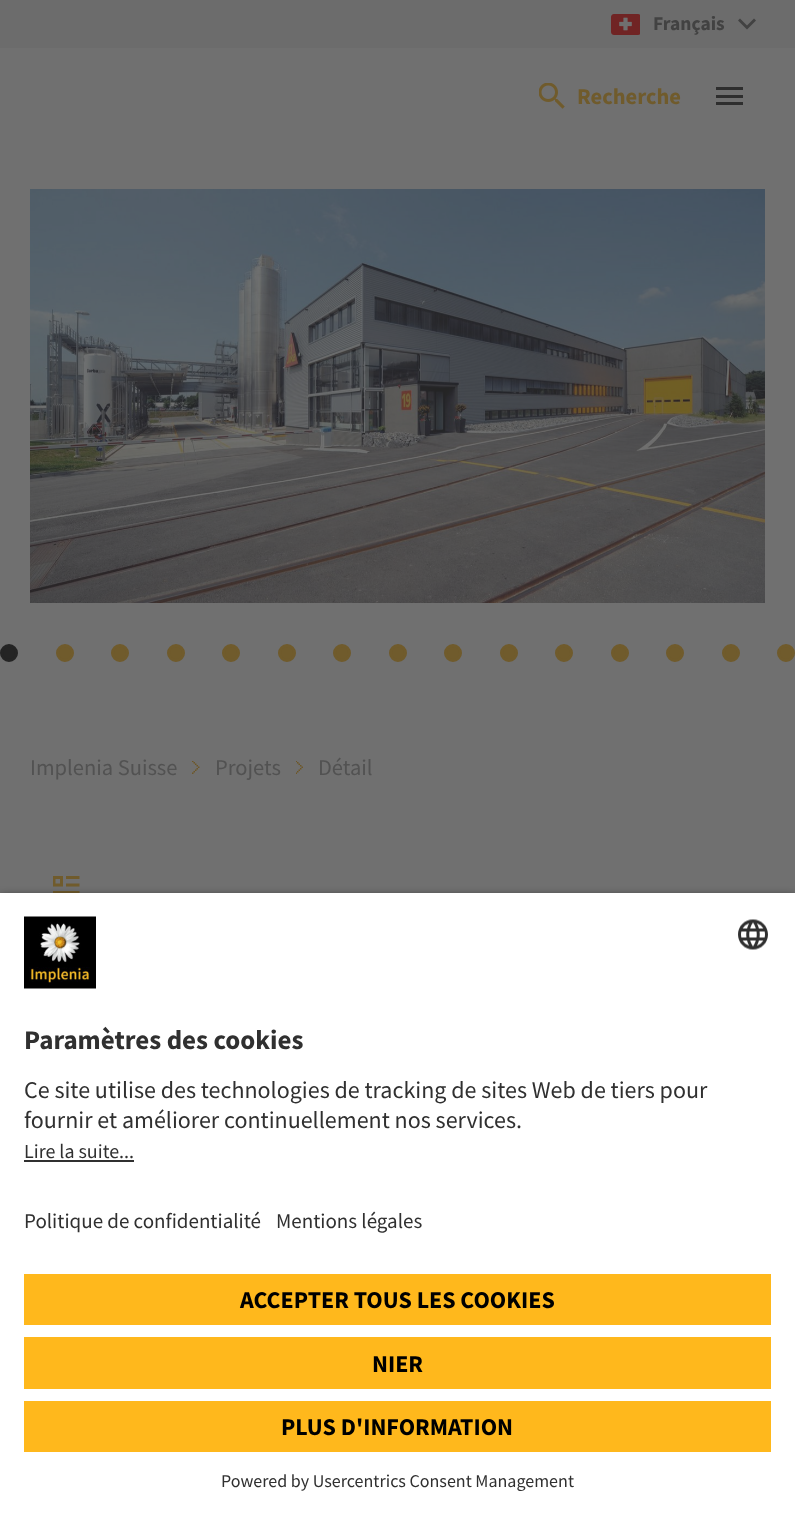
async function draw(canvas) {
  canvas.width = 795
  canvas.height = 1515
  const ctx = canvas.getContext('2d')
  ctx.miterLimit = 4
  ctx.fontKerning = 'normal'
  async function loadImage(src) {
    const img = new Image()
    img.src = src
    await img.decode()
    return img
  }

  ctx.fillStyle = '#707070'
  ctx.fillRect(0, 0, 795, 1515)
  ctx.fillStyle = '#6c6c6c'
  ctx.fillRect(0, 0, 795, 48)
  ctx.drawImage(await loadImage('image0.png'), 611, 14, 29, 21)
  ctx.font = 'bold 19.5px Source Sans Pro'
  ctx.fillStyle = '#424242'
  ctx.fillText('Français', 653, 30)
  ctx.beginPath()
  ctx.moveTo(740, 18.5)
  ctx.lineTo(747, 25.5)
  ctx.lineTo(754, 18.5)
  ctx.lineTo(756, 20.5)
  ctx.lineTo(747, 29.5)
  ctx.lineTo(738, 20.5)
  ctx.closePath()
  ctx.fill()
  ctx.drawImage(await loadImage('image1.png'), 539, 83, 26, 26)
  ctx.font = 'bold 22.5px Source Sans Pro'
  ctx.fillStyle = '#705b2c'
  ctx.fillText('Recherche', 577, 104)
  ctx.fillStyle = '#2e2e2e'
  ctx.fillRect(716, 87, 27, 3)
  ctx.fillRect(716, 95, 27, 3)
  ctx.fillRect(716, 102, 27, 3)
  ctx.drawImage(await loadImage('image2.png'), 30, 189, 735, 414)
  ctx.fillStyle = '#242424'
  ctx.beginPath()
  ctx.arc(9, 653, 7.5, 0, 2 * Math.PI)
  ctx.fill()
  ctx.strokeStyle = '#242424'
  ctx.lineWidth = 3
  ctx.stroke()
  ctx.fillStyle = '#705b2c'
  ctx.beginPath()
  ctx.arc(65, 653, 7.5, 0, 2 * Math.PI)
  ctx.fill()
  ctx.strokeStyle = '#705b2c'
  ctx.stroke()
  ctx.beginPath()
  ctx.arc(120, 653, 7.5, 0, 2 * Math.PI)
  ctx.fill()
  ctx.stroke()
  ctx.beginPath()
  ctx.arc(176, 653, 7.5, 0, 2 * Math.PI)
  ctx.fill()
  ctx.stroke()
  ctx.beginPath()
  ctx.arc(231, 653, 7.5, 0, 2 * Math.PI)
  ctx.fill()
  ctx.stroke()
  ctx.beginPath()
  ctx.arc(287, 653, 7.5, 0, 2 * Math.PI)
  ctx.fill()
  ctx.stroke()
  ctx.beginPath()
  ctx.arc(342, 653, 7.5, 0, 2 * Math.PI)
  ctx.fill()
  ctx.stroke()
  ctx.beginPath()
  ctx.arc(398, 653, 7.5, 0, 2 * Math.PI)
  ctx.fill()
  ctx.stroke()
  ctx.beginPath()
  ctx.arc(453, 653, 7.5, 0, 2 * Math.PI)
  ctx.fill()
  ctx.stroke()
  ctx.beginPath()
  ctx.arc(509, 653, 7.5, 0, 2 * Math.PI)
  ctx.fill()
  ctx.stroke()
  ctx.beginPath()
  ctx.arc(564, 653, 7.5, 0, 2 * Math.PI)
  ctx.fill()
  ctx.stroke()
  ctx.beginPath()
  ctx.arc(620, 653, 7.5, 0, 2 * Math.PI)
  ctx.fill()
  ctx.stroke()
  ctx.beginPath()
  ctx.arc(675, 653, 7.5, 0, 2 * Math.PI)
  ctx.fill()
  ctx.stroke()
  ctx.beginPath()
  ctx.arc(731, 653, 7.5, 0, 2 * Math.PI)
  ctx.fill()
  ctx.stroke()
  ctx.beginPath()
  ctx.arc(786, 653, 7.5, 0, 2 * Math.PI)
  ctx.fill()
  ctx.stroke()
  ctx.font = '22.5px Source Sans Pro'
  ctx.fillStyle = '#525252'
  ctx.fillText('Implenia Suisse', 30, 775)
  ctx.drawImage(await loadImage('image3.png'), 192, 761, 8, 13)
  ctx.fillText('Projets', 215, 775)
  ctx.drawImage(await loadImage('image4.png'), 296, 761, 7, 13)
  ctx.fillText('Détail', 318, 775)
  ctx.drawImage(await loadImage('image5.png'), 53, 876, 27, 17)
  ctx.fillStyle = '#000000cc'
  ctx.filter = 'blur(5px)'
  ctx.beginPath()
  ctx.rect(0, 897, 795, 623)
  ctx.fill()
  ctx.filter = 'none'
  ctx.fillStyle = '#fff'
  ctx.fillRect(0, 893, 795, 622)
  ctx.drawImage(await loadImage('image6.png'), 24, 916, 72, 73)
  ctx.drawImage(await loadImage('image7.png'), 738, 919, 30, 31)
  ctx.font = 'bold 27px Source Sans Pro'
  ctx.fillStyle = '#303030'
  ctx.fillText('Paramètres des cookies', 24, 1049)
  ctx.font = '24px Source Sans Pro'
  ctx.fillText('Ce site utilise des technologies de tracking de sites Web de tiers pour', 24, 1098)
  ctx.fillText('fournir et améliorer continuellement nos services.', 24, 1128)
  ctx.font = '20px Source Sans Pro'
  ctx.fillText('Lire la suite...', 24, 1158)
  ctx.fillRect(24, 1160, 110, 2)
  ctx.font = '21px Source Sans Pro'
  ctx.fillText('Politique de confidentialité', 24, 1228)
  ctx.fillText('Mentions légales', 276, 1228)
  ctx.fillStyle = '#ffb81c'
  ctx.fillRect(24, 1274, 747, 51)
  ctx.font = 'bold 24px Source Sans Pro'
  ctx.fillStyle = '#000'
  ctx.fillText('ACCEPTER TOUS LES COOKIES', 240, 1308)
  ctx.fillStyle = '#ffb81c'
  ctx.fillRect(24, 1337, 747, 52)
  ctx.fillStyle = '#000'
  ctx.fillText('NIER', 372, 1372)
  ctx.fillStyle = '#ffb81c'
  ctx.fillRect(24, 1401, 747, 51)
  ctx.fillStyle = '#000'
  ctx.fillText('PLUS D\'INFORMATION', 281, 1435)
  ctx.font = '18px Source Sans Pro'
  ctx.fillStyle = '#303030'
  ctx.fillText('Powered by Usercentrics Consent Management', 221, 1487)
}

draw(document.querySelector('canvas'))
